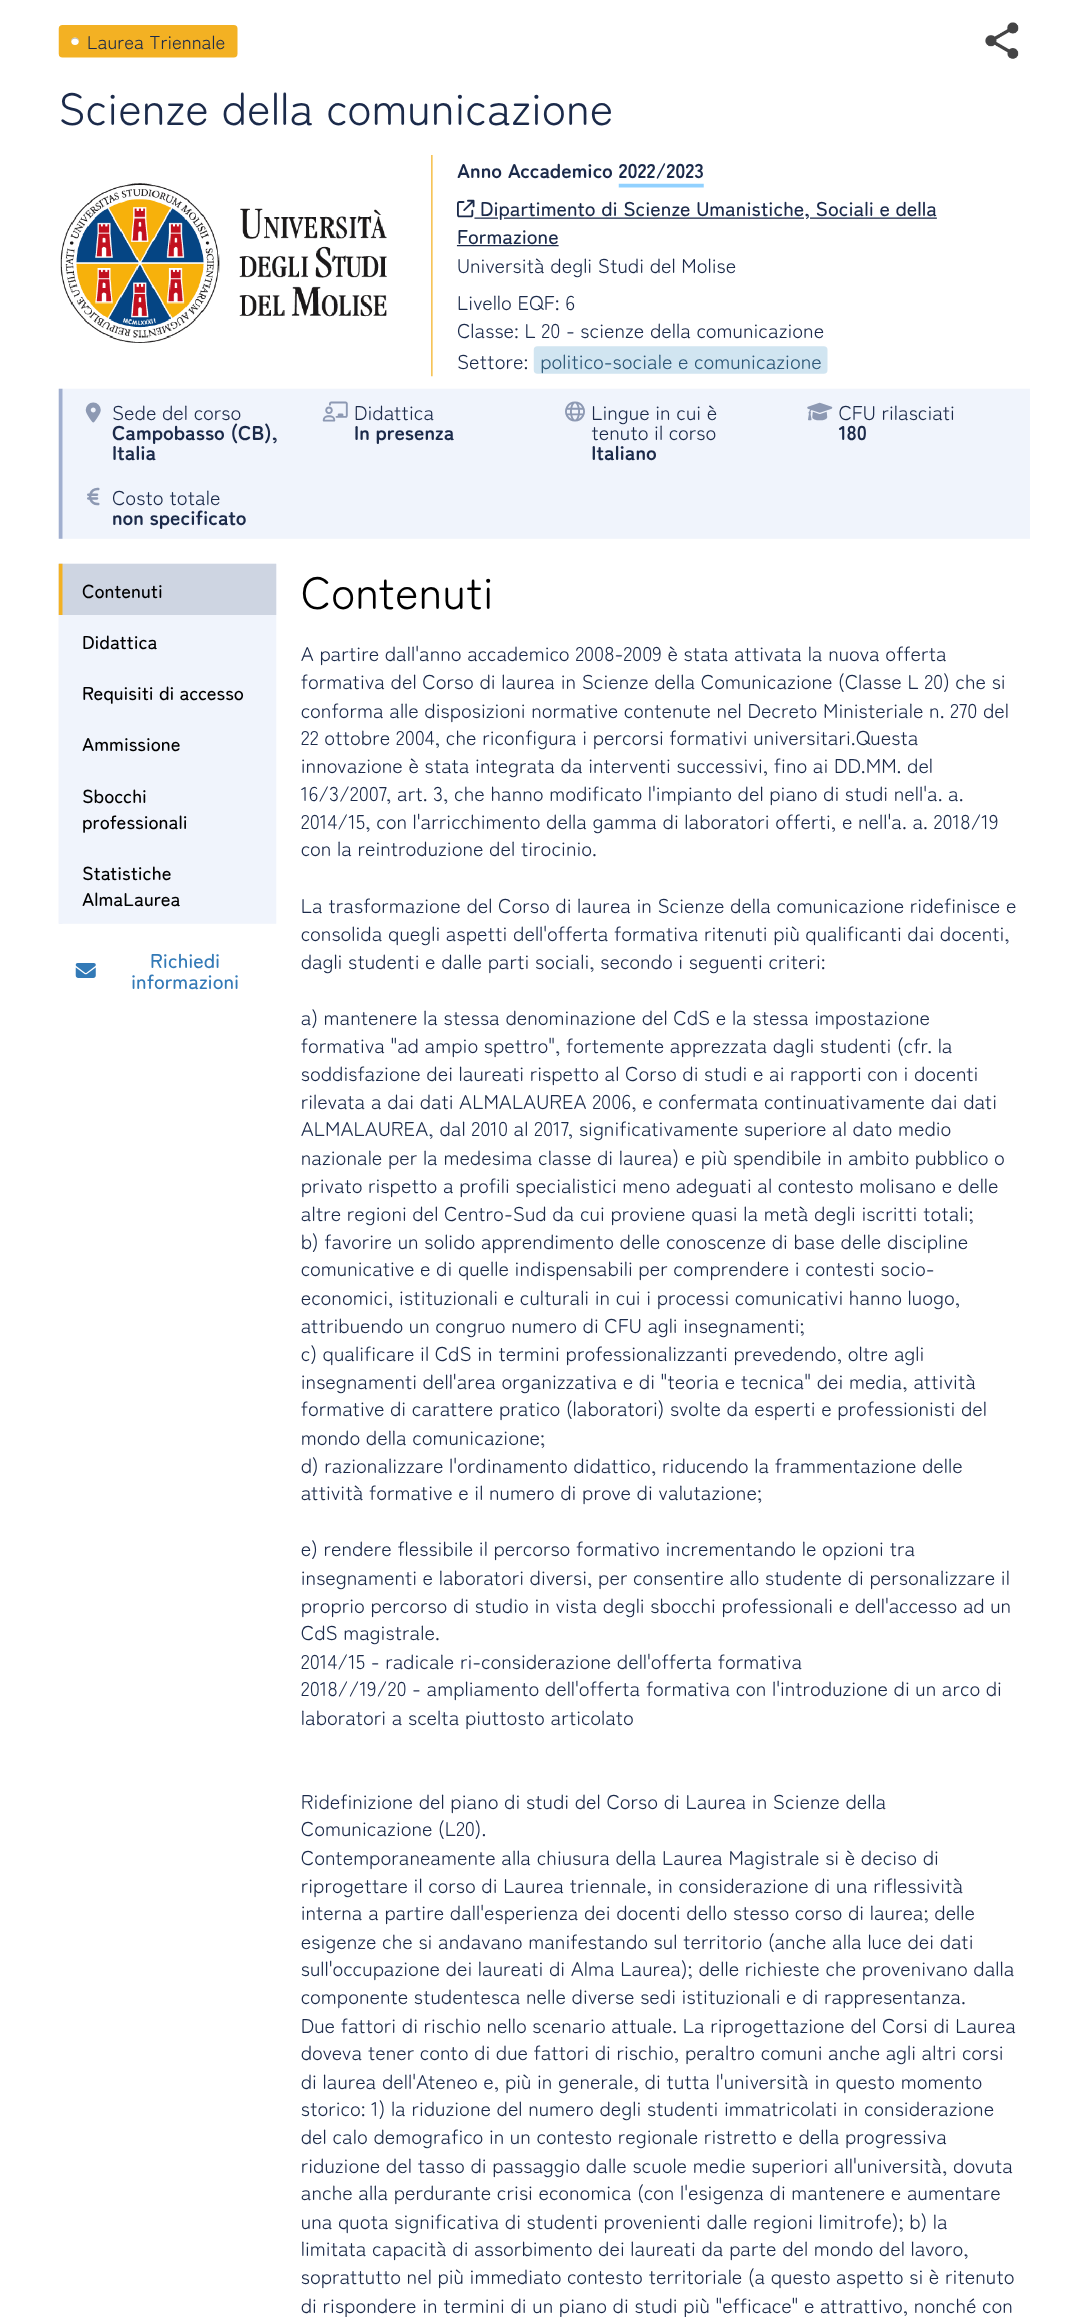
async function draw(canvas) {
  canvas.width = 1088
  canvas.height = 2317
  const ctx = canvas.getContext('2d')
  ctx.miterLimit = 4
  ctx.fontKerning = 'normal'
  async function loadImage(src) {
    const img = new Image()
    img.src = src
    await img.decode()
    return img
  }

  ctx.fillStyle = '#fff'
  ctx.fillRect(0, 0, 1088, 2317)
  ctx.drawImage(await loadImage('image0.png'), 58, 22, 972, 2295)
}

draw(document.querySelector('canvas'))
